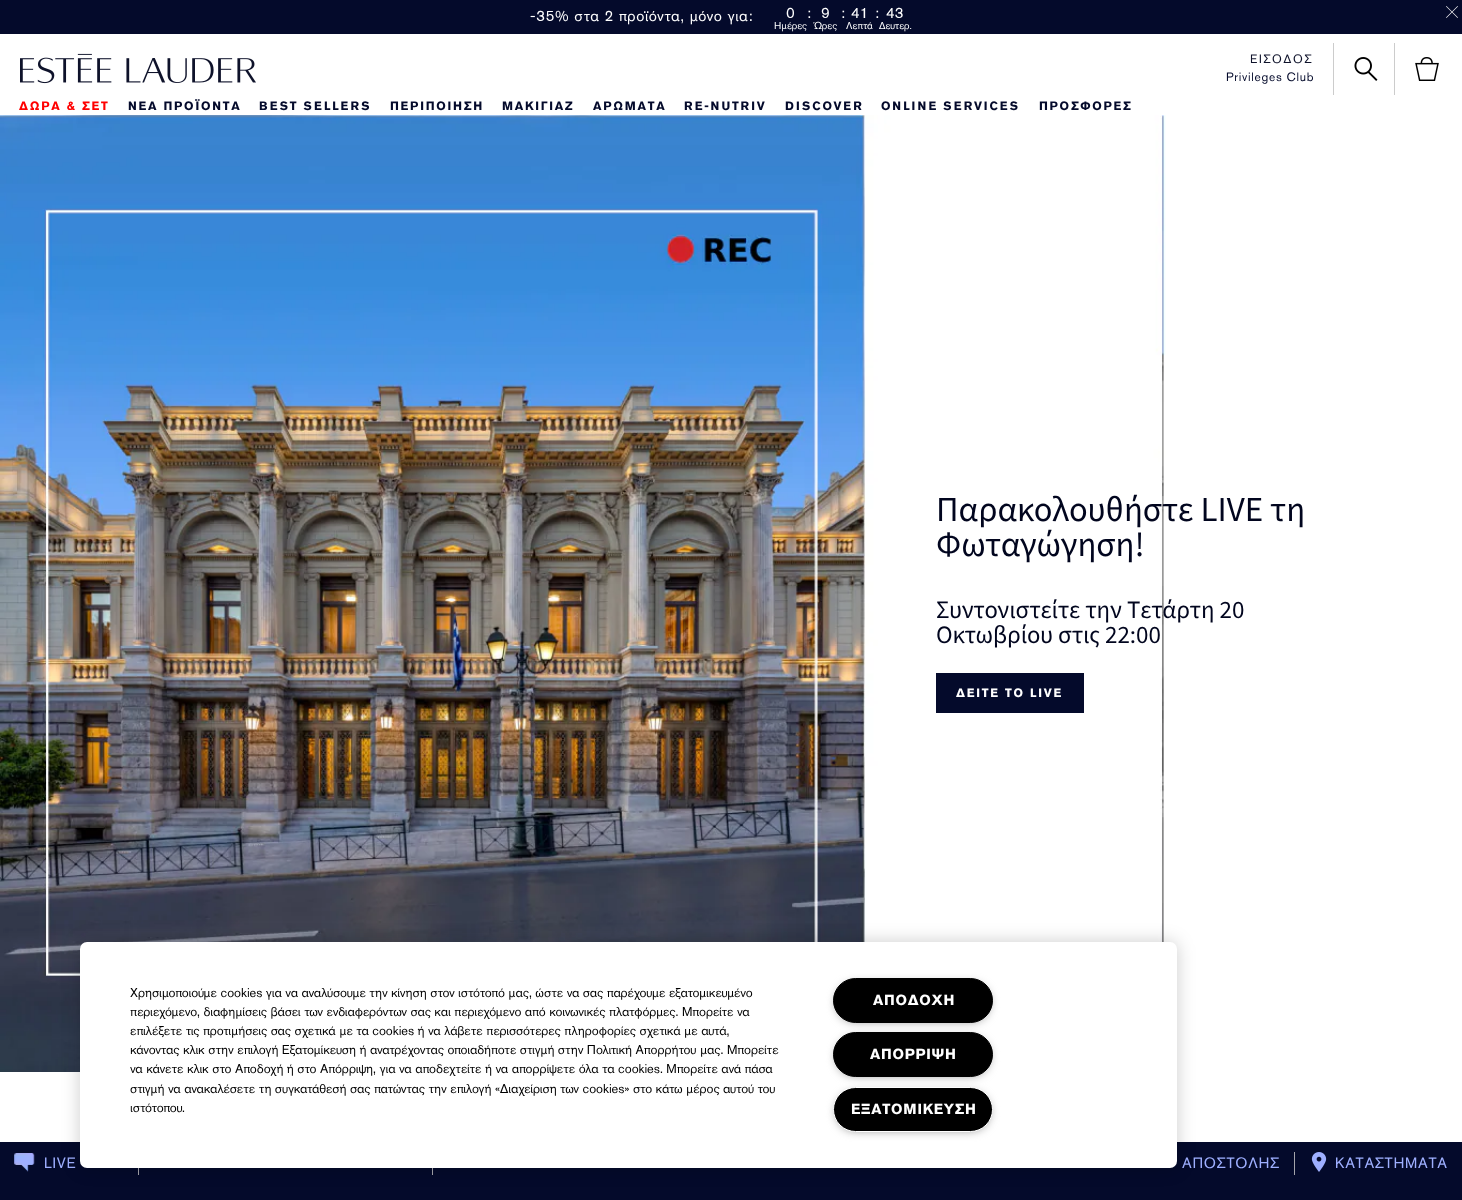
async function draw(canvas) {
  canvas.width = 1462
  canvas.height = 1200
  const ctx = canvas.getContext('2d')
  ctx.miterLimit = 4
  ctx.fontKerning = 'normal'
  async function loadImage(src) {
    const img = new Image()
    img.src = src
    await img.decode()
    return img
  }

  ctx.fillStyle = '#fff'
  ctx.fillRect(0, 0, 1462, 1200)
  ctx.fillStyle = '#040a2b'
  ctx.fillRect(0, 0, 1462, 34)
  ctx.letterSpacing = '0.75px'
  ctx.font = '15px "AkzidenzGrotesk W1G"'
  ctx.fillStyle = '#fff'
  ctx.fillText('-35% στα 2 προϊόντα, μόνο για:', 530, 21)
  ctx.letterSpacing = '0px'
  ctx.fillText('0', 786, 18)
  ctx.font = '10px "AkzidenzGrotesk W1G"'
  ctx.fillText('Ημέρες', 774, 29)
  ctx.font = '15px "AkzidenzGrotesk W1G"'
  ctx.fillText(':', 807, 18)
  ctx.fillText('9', 821, 18)
  ctx.font = '10px "AkzidenzGrotesk W1G"'
  ctx.fillText('Ώρες', 814, 29)
  ctx.font = '15px "AkzidenzGrotesk W1G"'
  ctx.fillText(':', 841, 18)
  ctx.fillText('41', 851, 18)
  ctx.font = '10px "AkzidenzGrotesk W1G"'
  ctx.fillText('Λεπτά', 846, 29)
  ctx.font = '15px "AkzidenzGrotesk W1G"'
  ctx.fillText(':', 875, 18)
  ctx.fillText('43', 886, 18)
  ctx.font = '10px "AkzidenzGrotesk W1G"'
  ctx.fillText('Δευτερ.', 879, 29)
  ctx.drawImage(await loadImage('image0.png'), 1446, 6, 12, 12)
  ctx.drawImage(await loadImage('image1.png'), 20, 53, 236, 31)
  ctx.letterSpacing = '1.75px'
  ctx.font = '12px "AkzidenzGrotesk W1G"'
  ctx.fillStyle = '#0e122a'
  ctx.fillText('ΕΙΣΟΔΟΣ', 1250, 63)
  ctx.letterSpacing = '0.75px'
  ctx.fillStyle = '#040a2b'
  ctx.fillText('Privileges Club', 1226, 81)
  ctx.fillStyle = '#ccc'
  ctx.fillRect(1394, 43, 1, 52)
  ctx.drawImage(await loadImage('image2.png'), 1415, 57, 24, 24)
  ctx.fillRect(1333, 43, 1, 52)
  ctx.drawImage(await loadImage('image3.png'), 1354, 57, 24, 24)
  ctx.letterSpacing = '1.75px'
  ctx.font = 'bold 12px "AkzidenzGrotesk W1G"'
  ctx.fillStyle = '#f00'
  ctx.fillText('ΔΩΡΑ & ΣΕΤ', 19, 110)
  ctx.fillStyle = '#040a2b'
  ctx.fillText('ΝΕΑ ΠΡΟΪΟΝΤΑ', 128, 110)
  ctx.fillText('BEST SELLERS', 259, 110)
  ctx.fillText('ΠΕΡΙΠΟΙΗΣΗ', 390, 110)
  ctx.fillText('ΜΑΚΙΓΙΑΖ', 502, 110)
  ctx.fillText('ΑΡΩΜΑΤΑ', 593, 110)
  ctx.fillText('RE-NUTRIV', 684, 110)
  ctx.fillText('DISCOVER', 785, 110)
  ctx.fillText('ONLINE SERVICES', 881, 110)
  ctx.fillText('ΠΡΟΣΦΟΡΕΣ', 1039, 110)
  ctx.drawImage(await loadImage('image4.png'), 0, 115, 1166, 957)
  ctx.letterSpacing = '0px'
  ctx.font = '200 35px "Source Sans 3"'
  ctx.fillStyle = '#01051e'
  ctx.fillText('Παρακολουθήστε LIVE τη', 936, 521)
  ctx.fillText('Φωταγώγηση!', 936, 556)
  ctx.font = '200 25px "Source Sans 3"'
  ctx.fillText('Συντονιστείτε την Tετάρτη 20', 936, 618)
  ctx.fillText('Οκτωβρίου στις 22:00', 936, 643)
  ctx.fillStyle = '#040a2b'
  ctx.fillRect(936, 673, 148, 40)
  ctx.letterSpacing = '1.75px'
  ctx.font = 'bold 12px "AkzidenzGrotesk W1G"'
  ctx.fillStyle = '#fff'
  ctx.fillText('ΔΕΙΤΕ ΤΟ LIVE', 956, 697)
  ctx.fillStyle = '#040a2b'
  ctx.fillRect(0, 1142, 1462, 58)
  ctx.drawImage(await loadImage('image5.png'), 14, 1153, 21, 19)
  ctx.letterSpacing = '0.75px'
  ctx.font = '15px "AkzidenzGrotesk W1G"'
  ctx.fillStyle = '#9eafff'
  ctx.fillText('LIVE', 44, 1168)
  ctx.fillStyle = '#a4a4ab'
  ctx.fillRect(138, 1168, 1, 7)
  ctx.fillRect(432, 1168, 1, 7)
  ctx.fillStyle = '#9eafff'
  ctx.fillText('ΑΠΟΣΤΟΛΗΣ', 1182, 1168)
  ctx.fillStyle = '#a4a4ab'
  ctx.fillRect(1294, 1152, 1, 23)
  ctx.drawImage(await loadImage('image6.png'), 1311, 1152, 16, 20)
  ctx.fillStyle = '#9eafff'
  ctx.fillText('ΚΑΤΑΣΤΗΜΑΤΑ', 1335, 1168)
  ctx.fillStyle = '#00000033'
  ctx.filter = 'blur(9px)'
  ctx.beginPath()
  ctx.roundRect(80, 942, 1097, 226, 7)
  ctx.fill()
  ctx.filter = 'none'
  ctx.fillStyle = '#fff'
  ctx.beginPath()
  ctx.roundRect(80, 942, 1097, 226, 7)
  ctx.fill()
  ctx.letterSpacing = '0px'
  ctx.font = '12.8px "AkzidenzGrotesk W1G"'
  ctx.fillStyle = '#000'
  ctx.fillText('Χρησιμοποιούμε cookies για να αναλύσουμε την κίνηση στον ιστότοπό μας, ώστε να σας παρέχουμε εξατομικευμένο', 130, 997)
  ctx.fillText('περιεχόμενο, διαφημίσεις βάσει των ενδιαφερόντων σας και περιεχόμενο από κοινωνικές πλατφόρμες. Μπορείτε να', 130, 1016)
  ctx.fillText('επιλέξετε τις προτιμήσεις σας σχετικά με τα cookies ή να λάβετε περισσότερες πληροφορίες σχετικά με αυτά,', 130, 1035)
  ctx.fillText('κάνοντας κλικ στην επιλογή Εξατομίκευση ή ανατρέχοντας οποιαδήποτε στιγμή στην Πολιτική Απορρήτου μας. Μπορείτε', 130, 1054)
  ctx.fillText('να κάνετε κλικ στο Αποδοχή ή στο Απόρριψη, για να αποδεχτείτε ή να απορρίψετε όλα τα cookies. Μπορείτε ανά πάσα', 130, 1073)
  ctx.fillText('στιγμή να ανακαλέσετε τη συγκατάθεσή σας πατώντας την επιλογή «Διαχείριση των cookies» στο κάτω μέρος αυτού του', 130, 1093)
  ctx.fillText('ιστότοπου.', 130, 1112)
  ctx.fillStyle = '#999'
  ctx.filter = 'blur(5px)'
  ctx.beginPath()
  ctx.roundRect(836, 983, 154, 39, 19.5)
  ctx.fill()
  ctx.filter = 'none'
  ctx.fillStyle = '#000'
  ctx.beginPath()
  ctx.roundRect(833.5, 978.5, 159, 44, 22)
  ctx.fill()
  ctx.strokeStyle = '#000'
  ctx.stroke()
  ctx.letterSpacing = '0.75px'
  ctx.font = 'bold 14.5px "AkzidenzGrotesk W1G"'
  ctx.fillStyle = '#fff'
  ctx.fillText('ΑΠΟΔΟΧΗ', 873, 1005)
  ctx.fillStyle = '#999'
  ctx.filter = 'blur(5px)'
  ctx.beginPath()
  ctx.roundRect(836, 1037, 154, 39, 19.5)
  ctx.fill()
  ctx.filter = 'none'
  ctx.fillStyle = '#000'
  ctx.beginPath()
  ctx.roundRect(833.5, 1032.5, 159, 44, 22)
  ctx.fill()
  ctx.stroke()
  ctx.fillStyle = '#fff'
  ctx.fillText('ΑΠΟΡΡΙΨΗ', 870, 1059)
  ctx.fillStyle = '#999'
  ctx.filter = 'blur(5px)'
  ctx.beginPath()
  ctx.roundRect(836, 1092, 154, 39, 19.5)
  ctx.fill()
  ctx.filter = 'none'
  ctx.fillStyle = '#000'
  ctx.beginPath()
  ctx.roundRect(833.5, 1087.5, 159, 44, 22)
  ctx.fill()
  ctx.strokeStyle = '#fff'
  ctx.stroke()
  ctx.fillStyle = '#fff'
  ctx.fillText('ΕΞΑΤΟΜΙΚΕΥΣΗ', 851, 1114)
}

draw(document.querySelector('canvas'))
